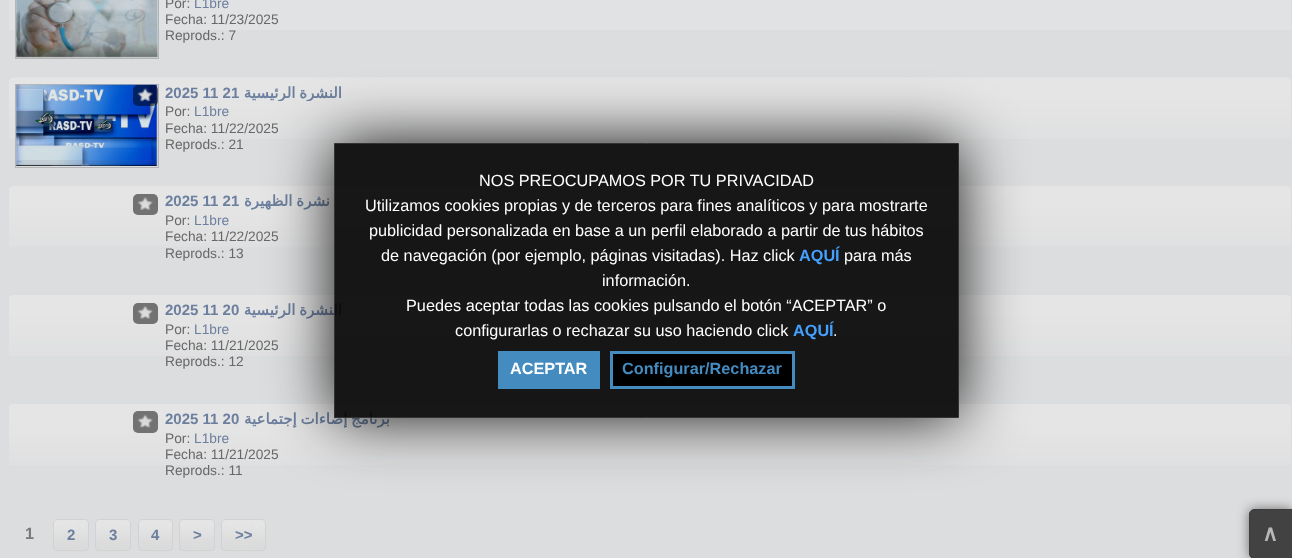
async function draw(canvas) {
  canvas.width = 1292
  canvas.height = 558
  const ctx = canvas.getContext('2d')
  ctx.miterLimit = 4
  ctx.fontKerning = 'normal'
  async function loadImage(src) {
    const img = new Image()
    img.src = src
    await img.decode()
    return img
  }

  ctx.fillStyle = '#dcddde'
  ctx.fillRect(0, 0, 1292, 558)
  ctx.fillStyle = '#e1e2e3'
  ctx.fillRect(9, 0, 1282, 30)
  ctx.strokeStyle = '#b4b5b7'
  ctx.strokeRect(15.5, -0.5, 143, 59)
  ctx.drawImage(await loadImage('image0.png'), 16, 0, 142, 58)
  ctx.font = '13.75px Liberation Sans'
  ctx.fillStyle = '#686868'
  ctx.fillText('Por:', 165, 8)
  ctx.fillStyle = '#6c7f9e'
  ctx.fillText('L1bre', 194, 8)
  ctx.fillStyle = '#686868'
  ctx.fillText('Fecha: 11/23/2025', 165, 24)
  ctx.fillText('Reprods.: 7', 165, 40)
  ctx.drawImage(await loadImage('image1.png'), 9, 77, 1282, 62)
  ctx.strokeRect(15.5, 84.5, 143, 83)
  ctx.drawImage(await loadImage('image2.png'), 16, 84, 142, 82)
  ctx.fillStyle = '#00000080'
  ctx.beginPath()
  ctx.roundRect(133, 85, 25, 21, 5)
  ctx.fill()
  ctx.drawImage(await loadImage('image3.png'), 137, 88, 16, 14)
  ctx.font = 'bold 15px Liberation Sans'
  ctx.fillStyle = '#6c7f9e'
  ctx.fillText('2025 11 21', 165, 98)
  ctx.save()
  ctx.beginPath()
  ctx.rect(165, 84, 1120, 17)
  ctx.clip()
  ctx.wordSpacing = '-1px'
  ctx.direction = 'rtl'
  ctx.font = 'bold 15px DejaVu Sans'
  ctx.fillText('النشرة الرئيسية', 342, 98)
  ctx.restore()
  ctx.font = '13.75px Liberation Sans'
  ctx.fillStyle = '#686868'
  ctx.fillText('Por:', 165, 116)
  ctx.fillStyle = '#6c7f9e'
  ctx.fillText('L1bre', 194, 116)
  ctx.fillStyle = '#686868'
  ctx.fillText('Fecha: 11/22/2025', 165, 133)
  ctx.fillText('Reprods.: 21', 165, 149)
  ctx.drawImage(await loadImage('image4.png'), 9, 186, 1282, 61)
  ctx.fillStyle = '#727272'
  ctx.beginPath()
  ctx.roundRect(133, 194, 25, 21, 5)
  ctx.fill()
  ctx.drawImage(await loadImage('image5.png'), 137, 197, 16, 13)
  ctx.font = 'bold 15px Liberation Sans'
  ctx.fillStyle = '#6c7f9e'
  ctx.fillText('2025 11 21', 165, 206)
  ctx.wordSpacing = '-1px'
  ctx.direction = 'rtl'
  ctx.font = 'bold 15px DejaVu Sans'
  ctx.fillText('نشرة الظهيرة', 330, 206)
  ctx.wordSpacing = '0px'
  ctx.direction = 'ltr'
  ctx.font = '13.75px Liberation Sans'
  ctx.fillStyle = '#686868'
  ctx.fillText('Por:', 165, 225)
  ctx.fillStyle = '#6c7f9e'
  ctx.fillText('L1bre', 194, 225)
  ctx.fillStyle = '#686868'
  ctx.fillText('Fecha: 11/22/2025', 165, 241)
  ctx.fillText('Reprods.: 13', 165, 258)
  ctx.drawImage(await loadImage('image6.png'), 9, 295, 1282, 61)
  ctx.fillStyle = '#727272'
  ctx.beginPath()
  ctx.roundRect(133, 303, 25, 21, 5)
  ctx.fill()
  ctx.drawImage(await loadImage('image7.png'), 137, 306, 16, 13)
  ctx.font = 'bold 15px Liberation Sans'
  ctx.fillStyle = '#6c7f9e'
  ctx.fillText('2025 11 20', 165, 315)
  ctx.wordSpacing = '-1px'
  ctx.direction = 'rtl'
  ctx.font = 'bold 15px DejaVu Sans'
  ctx.fillText('النشرة الرئيسية', 342, 315)
  ctx.wordSpacing = '0px'
  ctx.direction = 'ltr'
  ctx.font = '13.75px Liberation Sans'
  ctx.fillStyle = '#686868'
  ctx.fillText('Por:', 165, 334)
  ctx.fillStyle = '#6c7f9e'
  ctx.fillText('L1bre', 194, 334)
  ctx.fillStyle = '#686868'
  ctx.fillText('Fecha: 11/21/2025', 165, 350)
  ctx.fillText('Reprods.: 12', 165, 366)
  ctx.drawImage(await loadImage('image8.png'), 9, 404, 1282, 61)
  ctx.fillStyle = '#00000080'
  ctx.beginPath()
  ctx.roundRect(133, 411, 25, 22, 5)
  ctx.fill()
  ctx.drawImage(await loadImage('image9.png'), 137, 414, 16, 14)
  ctx.font = 'bold 15px Liberation Sans'
  ctx.fillStyle = '#6c7f9e'
  ctx.fillText('2025 11 20', 165, 424)
  ctx.wordSpacing = '-1px'
  ctx.direction = 'rtl'
  ctx.font = 'bold 15px DejaVu Sans'
  ctx.fillText('برنامج إضاءات إجتماعية', 390, 424)
  ctx.wordSpacing = '0px'
  ctx.direction = 'ltr'
  ctx.font = '13.75px Liberation Sans'
  ctx.fillStyle = '#686868'
  ctx.fillText('Por:', 165, 443)
  ctx.fillStyle = '#6c7f9e'
  ctx.fillText('L1bre', 194, 443)
  ctx.fillStyle = '#686868'
  ctx.fillText('Fecha: 11/21/2025', 165, 459)
  ctx.fillText('Reprods.: 11', 165, 475)
  ctx.font = 'bold 16.25px Liberation Sans'
  ctx.fillStyle = '#7a7a7a'
  ctx.fillText('1', 25, 539)
  ctx.drawImage(await loadImage('image10.png'), 53, 520, 36, 30)
  ctx.beginPath()
  ctx.roundRect(53.5, 519.5, 35, 31, 3.5)
  ctx.strokeStyle = '#d1d2d4'
  ctx.stroke()
  ctx.font = 'bold 15px Liberation Sans'
  ctx.fillStyle = '#6c7f9e'
  ctx.fillText('2', 67, 540)
  ctx.drawImage(await loadImage('image11.png'), 95, 520, 36, 30)
  ctx.beginPath()
  ctx.roundRect(95.5, 519.5, 35, 31, 3.5)
  ctx.stroke()
  ctx.fillText('3', 109, 540)
  ctx.drawImage(await loadImage('image12.png'), 138, 520, 34, 30)
  ctx.beginPath()
  ctx.roundRect(138.5, 519.5, 34, 31, 3.5)
  ctx.stroke()
  ctx.fillText('4', 151, 540)
  ctx.drawImage(await loadImage('image13.png'), 179, 520, 36, 30)
  ctx.beginPath()
  ctx.roundRect(179.5, 519.5, 35, 31, 3.5)
  ctx.stroke()
  ctx.fillText('>', 193, 540)
  ctx.drawImage(await loadImage('image14.png'), 221, 520, 45, 30)
  ctx.beginPath()
  ctx.roundRect(221.5, 519.5, 44, 31, 3.5)
  ctx.stroke()
  ctx.fillText('>>', 235, 540)
  ctx.save()
  ctx.beginPath()
  ctx.moveTo(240, 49)
  ctx.lineTo(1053, 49)
  ctx.lineTo(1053, 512)
  ctx.lineTo(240, 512)
  ctx.closePath()
  ctx.moveTo(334, 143)
  ctx.lineTo(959, 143)
  ctx.lineTo(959, 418)
  ctx.lineTo(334, 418)
  ctx.closePath()
  ctx.clip('evenodd')
  ctx.fillStyle = '#000000e6'
  ctx.filter = 'blur(31px)'
  ctx.beginPath()
  ctx.rect(334, 143, 625, 275)
  ctx.fill()
  ctx.filter = 'none'
  ctx.restore()
  ctx.fillStyle = '#000000e6'
  ctx.beginPath()
  ctx.rect(334.5, 143.5, 624, 274)
  ctx.fill()
  ctx.strokeStyle = '#333'
  ctx.stroke()
  ctx.font = '16.25px Liberation Sans'
  ctx.fillStyle = '#fff'
  ctx.fillText('NOS PREOCUPAMOS POR TU PRIVACIDAD', 479, 186)
  ctx.fillText('Utilizamos cookies propias y de terceros para fines analíticos y para mostrarte', 365, 211)
  ctx.fillText('publicidad personalizada en base a un perfil elaborado a partir de tus hábitos', 369, 236)
  ctx.fillText('de navegación (por ejemplo, páginas visitadas). Haz click', 381, 261)
  ctx.font = 'bold 16.25px Liberation Sans'
  ctx.fillStyle = '#45a1ff'
  ctx.fillText('AQUÍ', 799, 261)
  ctx.font = '16.25px Liberation Sans'
  ctx.fillStyle = '#fff'
  ctx.fillText('para más', 844, 261)
  ctx.fillText('información.', 602, 286)
  ctx.fillText('Puedes aceptar todas las cookies pulsando el botón “ACEPTAR” o', 406, 311)
  ctx.fillText('configurarlas o rechazar su uso haciendo click', 455, 336)
  ctx.font = 'bold 16.25px Liberation Sans'
  ctx.fillStyle = '#45a1ff'
  ctx.fillText('AQUÍ', 793, 336)
  ctx.font = '16.25px Liberation Sans'
  ctx.fillStyle = '#fff'
  ctx.fillText('.', 833, 336)
  ctx.fillStyle = '#448bc0'
  ctx.fillRect(498, 351, 102, 38)
  ctx.font = 'bold 16.25px Liberation Sans'
  ctx.fillStyle = '#fff'
  ctx.fillText('ACEPTAR', 510, 374)
  ctx.fillStyle = '#000'
  ctx.beginPath()
  ctx.rect(611.5, 352.5, 182, 35)
  ctx.fill()
  ctx.strokeStyle = '#448bc0'
  ctx.lineWidth = 3
  ctx.stroke()
  ctx.fillStyle = '#448bc0'
  ctx.fillText('Configurar/Rechazar', 622, 374)
  ctx.save()
  ctx.beginPath()
  ctx.moveTo(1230, 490)
  ctx.lineTo(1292, 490)
  ctx.lineTo(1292, 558)
  ctx.lineTo(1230, 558)
  ctx.closePath()
  ctx.moveTo(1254, 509)
  ctx.lineTo(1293, 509)
  ctx.lineTo(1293, 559)
  ctx.lineTo(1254, 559)
  ctx.bezierCurveTo(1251, 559, 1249, 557, 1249, 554)
  ctx.lineTo(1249, 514)
  ctx.bezierCurveTo(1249, 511, 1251, 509, 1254, 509)
  ctx.closePath()
  ctx.clip('evenodd')
  ctx.fillStyle = '#00000080'
  ctx.filter = 'blur(6px)'
  ctx.beginPath()
  ctx.roundRect(1249, 509, 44, 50, 5)
  ctx.fill()
  ctx.filter = 'none'
  ctx.restore()
  ctx.fillStyle = '#000000b3'
  ctx.beginPath()
  ctx.moveTo(1254, 509.5)
  ctx.lineTo(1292.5, 509.5)
  ctx.lineTo(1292.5, 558.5)
  ctx.lineTo(1254, 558.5)
  ctx.bezierCurveTo(1251.5, 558.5, 1249.5, 556.5, 1249.5, 554)
  ctx.lineTo(1249.5, 514)
  ctx.bezierCurveTo(1249.5, 511.5, 1251.5, 509.5, 1254, 509.5)
  ctx.closePath()
  ctx.fill()
  ctx.strokeStyle = '#3d3d3d'
  ctx.lineWidth = 1
  ctx.stroke()
  ctx.font = 'bold 22px DejaVu Sans'
  ctx.fillStyle = '#b8b8b8'
  ctx.fillText('∧', 1262, 541)
}

draw(document.querySelector('canvas'))
